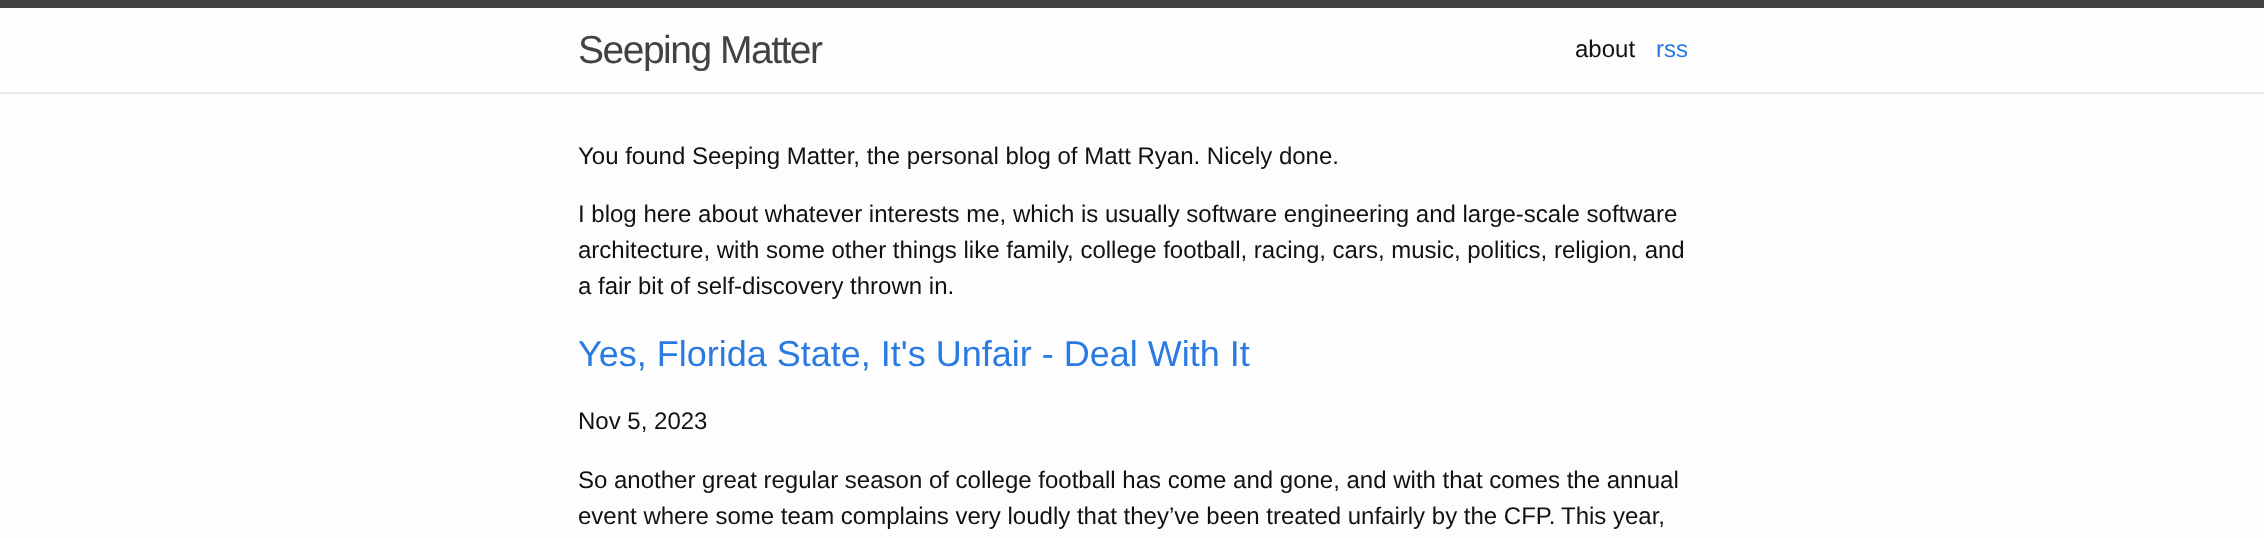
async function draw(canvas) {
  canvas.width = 2264
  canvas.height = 538
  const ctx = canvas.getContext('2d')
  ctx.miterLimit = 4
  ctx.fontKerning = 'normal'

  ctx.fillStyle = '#fdfdfd'
  ctx.fillRect(0, 0, 2264, 538)
  ctx.fillStyle = '#424242'
  ctx.fillRect(0, 0, 2264, 8)
  ctx.fillStyle = '#e8e8e8'
  ctx.fillRect(0, 92, 2264, 2)
  ctx.letterSpacing = '-1.5px'
  ctx.font = '39px Liberation Sans'
  ctx.fillStyle = '#424242'
  ctx.fillText('Seeping Matter', 578, 63)
  ctx.letterSpacing = '0px'
  ctx.font = '24px Liberation Sans'
  ctx.fillStyle = '#111'
  ctx.fillText('about', 1575, 57)
  ctx.fillStyle = '#2a7ae2'
  ctx.fillText('rss', 1656, 57)
  ctx.fillStyle = '#111'
  ctx.fillText('You found Seeping Matter, the personal blog of Matt Ryan. Nicely done.', 578, 164)
  ctx.fillText('I blog here about whatever interests me, which is usually software engineering and large-scale software', 578, 222)
  ctx.fillText('architecture, with some other things like family, college football, racing, cars, music, politics, religion, and', 578, 258)
  ctx.fillText('a fair bit of self-discovery thrown in.', 578, 294)
  ctx.font = '36px Liberation Sans'
  ctx.fillStyle = '#2a7ae2'
  ctx.fillText('Yes, Florida State, It\'s Unfair - Deal With It', 578, 366)
  ctx.font = '24px Liberation Sans'
  ctx.fillStyle = '#111'
  ctx.fillText('Nov 5, 2023', 578, 429)
  ctx.fillText('So another great regular season of college football has come and gone, and with that comes the annual', 578, 488)
  ctx.fillText('event where some team complains very loudly that they’ve been treated unfairly by the CFP.', 578, 524)
  ctx.fillText('This year,', 1561, 524)
}

draw(document.querySelector('canvas'))
